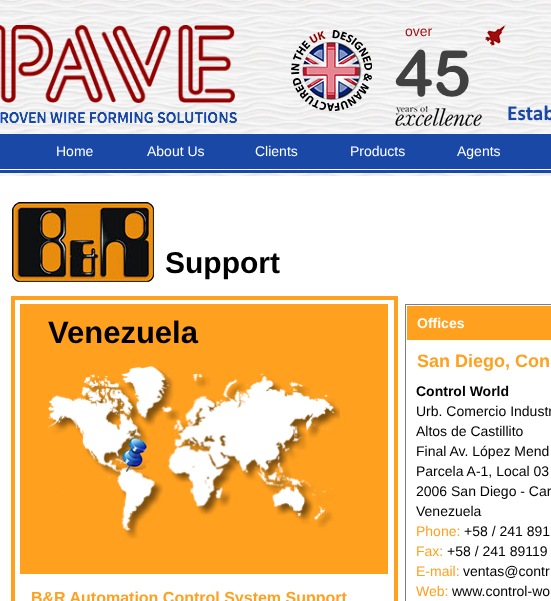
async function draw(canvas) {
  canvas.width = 551
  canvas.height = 601
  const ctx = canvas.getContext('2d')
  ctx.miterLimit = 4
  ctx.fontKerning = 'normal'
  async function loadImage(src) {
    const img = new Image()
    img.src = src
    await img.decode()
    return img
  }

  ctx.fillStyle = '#fff'
  ctx.fillRect(0, 0, 551, 601)
  ctx.drawImage(await loadImage('image0.png'), 0, 0, 551, 176)
  ctx.drawImage(await loadImage('image1.png'), 0, 25, 235, 78)
  ctx.drawImage(await loadImage('image2.png'), 291, 30, 81, 81)
  ctx.drawImage(await loadImage('image3.png'), 0, 112, 237, 12)
  ctx.font = '14px Liberation Sans'
  ctx.fillStyle = '#9f0e0e'
  ctx.fillText('over', 405, 36)
  ctx.drawImage(await loadImage('image4.png'), 485, 24, 21, 22)
  ctx.drawImage(await loadImage('image5.png'), 395, 49, 87, 77)
  ctx.drawImage(await loadImage('image6.png'), 508, 105, 43, 16)
  ctx.fillStyle = '#1a48a7'
  ctx.fillRect(0, 134, 551, 35)
  ctx.fillStyle = '#fff'
  ctx.fillText('Home', 56, 156)
  ctx.fillText('About Us', 147, 156)
  ctx.fillText('Clients', 255, 156)
  ctx.fillText('Products', 350, 156)
  ctx.fillText('Agents', 457, 156)
  ctx.fillRect(0, 169, 551, 1)
  ctx.fillStyle = '#1a48a7'
  ctx.fillRect(0, 170, 551, 3)
  ctx.drawImage(await loadImage('image7.png'), 12, 202, 142, 80)
  ctx.font = 'bold 30px Liberation Sans'
  ctx.fillStyle = '#000'
  ctx.fillText('Support', 165, 273)
  ctx.strokeStyle = '#ffa01f'
  ctx.lineWidth = 4
  ctx.strokeRect(13, 298, 383, 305)
  ctx.fillStyle = '#ffa01f'
  ctx.fillRect(20, 304, 368, 270)
  ctx.font = 'bold 31px Liberation Sans'
  ctx.fillStyle = '#000'
  ctx.fillText('Venezuela', 48, 343)
  ctx.drawImage(await loadImage('image8.png'), 48, 366, 292, 173)
  ctx.font = 'bold 16px Liberation Sans'
  ctx.fillStyle = '#ffa01f'
  ctx.fillText('B&R Automation Control System Support', 31, 603)
  ctx.strokeStyle = '#7f7f7f'
  ctx.lineWidth = 1
  ctx.strokeRect(405.5, 304.5, 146, 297)
  ctx.fillRect(407, 306, 144, 34)
  ctx.font = 'bold 14px Liberation Sans'
  ctx.fillStyle = '#fff'
  ctx.fillText('Offices', 417, 328)
  ctx.font = 'bold 18px Liberation Sans'
  ctx.fillStyle = '#ffa01f'
  ctx.fillText('San Diego, Con', 417, 367)
  ctx.font = 'bold 14px Liberation Sans'
  ctx.fillStyle = '#000'
  ctx.fillText('Control World', 416, 396)
  ctx.font = '14px Liberation Sans'
  ctx.fillText('Urb. Comercio Industr', 416, 416)
  ctx.fillText('Altos de Castillito', 416, 436)
  ctx.fillText('Final Av. López Mend', 416, 456)
  ctx.fillText('Parcela A-1, Local 03', 416, 476)
  ctx.fillText('2006 San Diego - Car', 416, 496)
  ctx.fillText('Venezuela', 416, 516)
  ctx.fillStyle = '#ffa01f'
  ctx.fillText('Phone:', 416, 536)
  ctx.fillStyle = '#000'
  ctx.fillText('+58 / 241 891', 464, 536)
  ctx.fillStyle = '#ffa01f'
  ctx.fillText('Fax:', 416, 556)
  ctx.fillStyle = '#000'
  ctx.fillText('+58 / 241 89119', 447, 556)
  ctx.fillStyle = '#ffa01f'
  ctx.fillText('E-mail:', 416, 576)
  ctx.fillStyle = '#000'
  ctx.fillText('ventas@contr', 463, 576)
  ctx.fillStyle = '#ffa01f'
  ctx.fillText('Web:', 416, 596)
  ctx.fillStyle = '#000'
  ctx.fillText('www.control-wo', 452, 596)
  ctx.drawImage(await loadImage('image9.png'), 122, 438, 29, 34)
}

draw(document.querySelector('canvas'))
